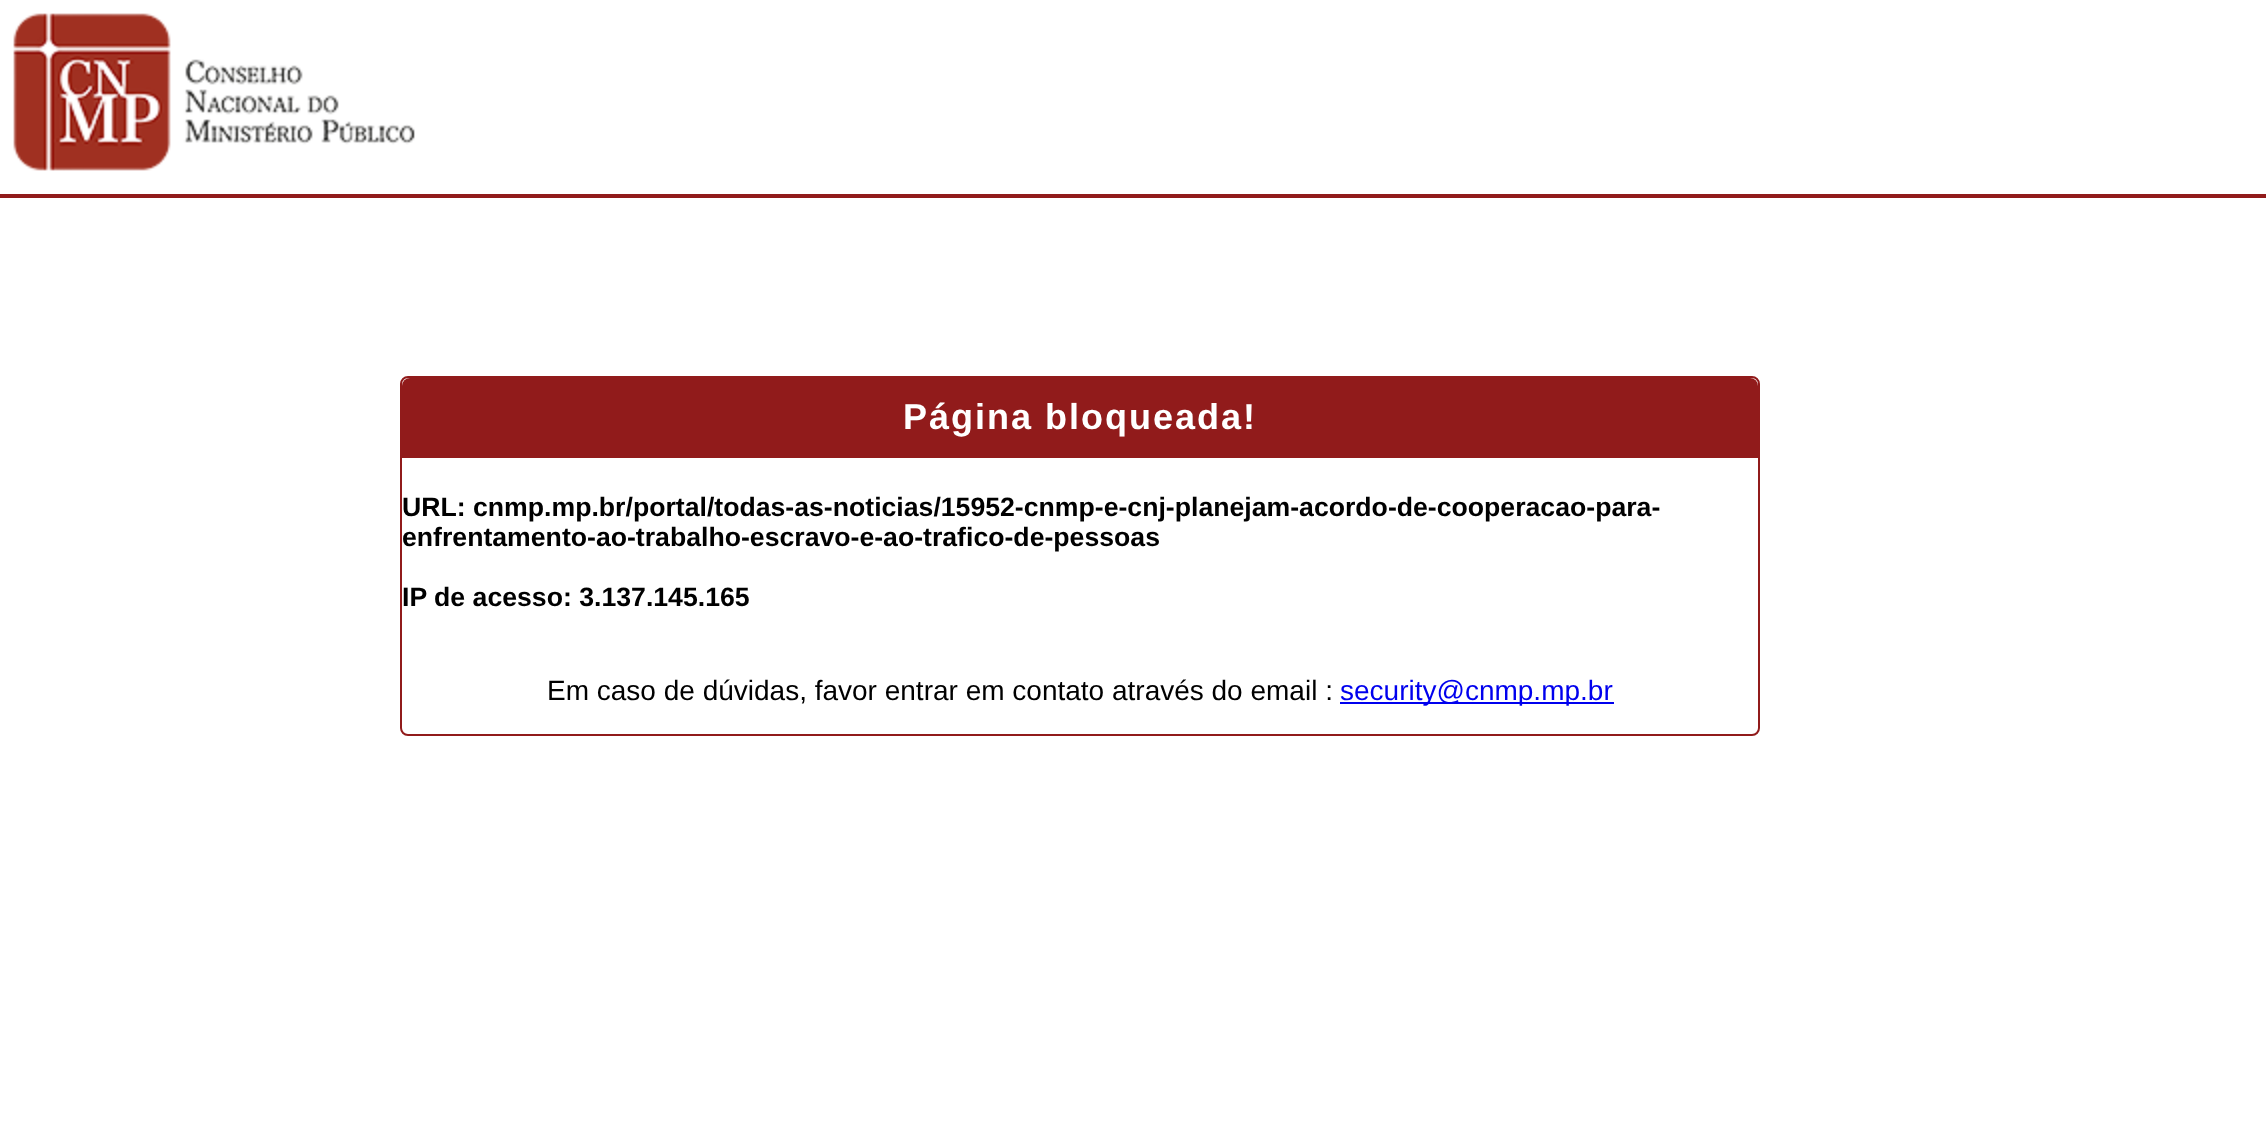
async function draw(canvas) {
  canvas.width = 2266
  canvas.height = 1135
  const ctx = canvas.getContext('2d')
  ctx.miterLimit = 4
  ctx.fontKerning = 'normal'
  async function loadImage(src) {
    const img = new Image()
    img.src = src
    await img.decode()
    return img
  }

  ctx.fillStyle = '#fff'
  ctx.fillRect(0, 0, 2266, 1135)
  ctx.drawImage(await loadImage('image0.png'), 13, 13, 402, 158)
  ctx.fillStyle = '#911b1b'
  ctx.fillRect(0, 194, 2266, 4)
  ctx.beginPath()
  ctx.roundRect(401, 377, 1358, 358, 7)
  ctx.strokeStyle = '#911b1b'
  ctx.lineWidth = 2
  ctx.stroke()
  ctx.beginPath()
  ctx.roundRect(402, 378, 1356, 80, [8, 8, 0, 0])
  ctx.fill()
  ctx.letterSpacing = '2px'
  ctx.font = 'bold 36px Liberation Sans'
  ctx.fillStyle = '#fff'
  ctx.fillText('Página bloqueada!', 903, 429)
  ctx.letterSpacing = '0px'
  ctx.font = 'bold 26.65px Liberation Sans'
  ctx.fillStyle = '#000'
  ctx.fillText('URL: cnmp.mp.br/portal/todas-as-noticias/15952-cnmp-e-cnj-planejam-acordo-de-cooperacao-para-', 402, 516)
  ctx.fillText('enfrentamento-ao-trabalho-escravo-e-ao-trafico-de-pessoas', 402, 546)
  ctx.fillText('IP de acesso: 3.137.145.165', 402, 606)
  ctx.font = '28px Liberation Sans'
  ctx.fillText('Em caso de dúvidas, favor entrar em contato através do email :', 547, 700)
  ctx.fillStyle = '#00e'
  ctx.fillRect(1340, 702, 274, 2)
  ctx.fillText('security@cnmp.mp.br', 1340, 700)
}

draw(document.querySelector('canvas'))
